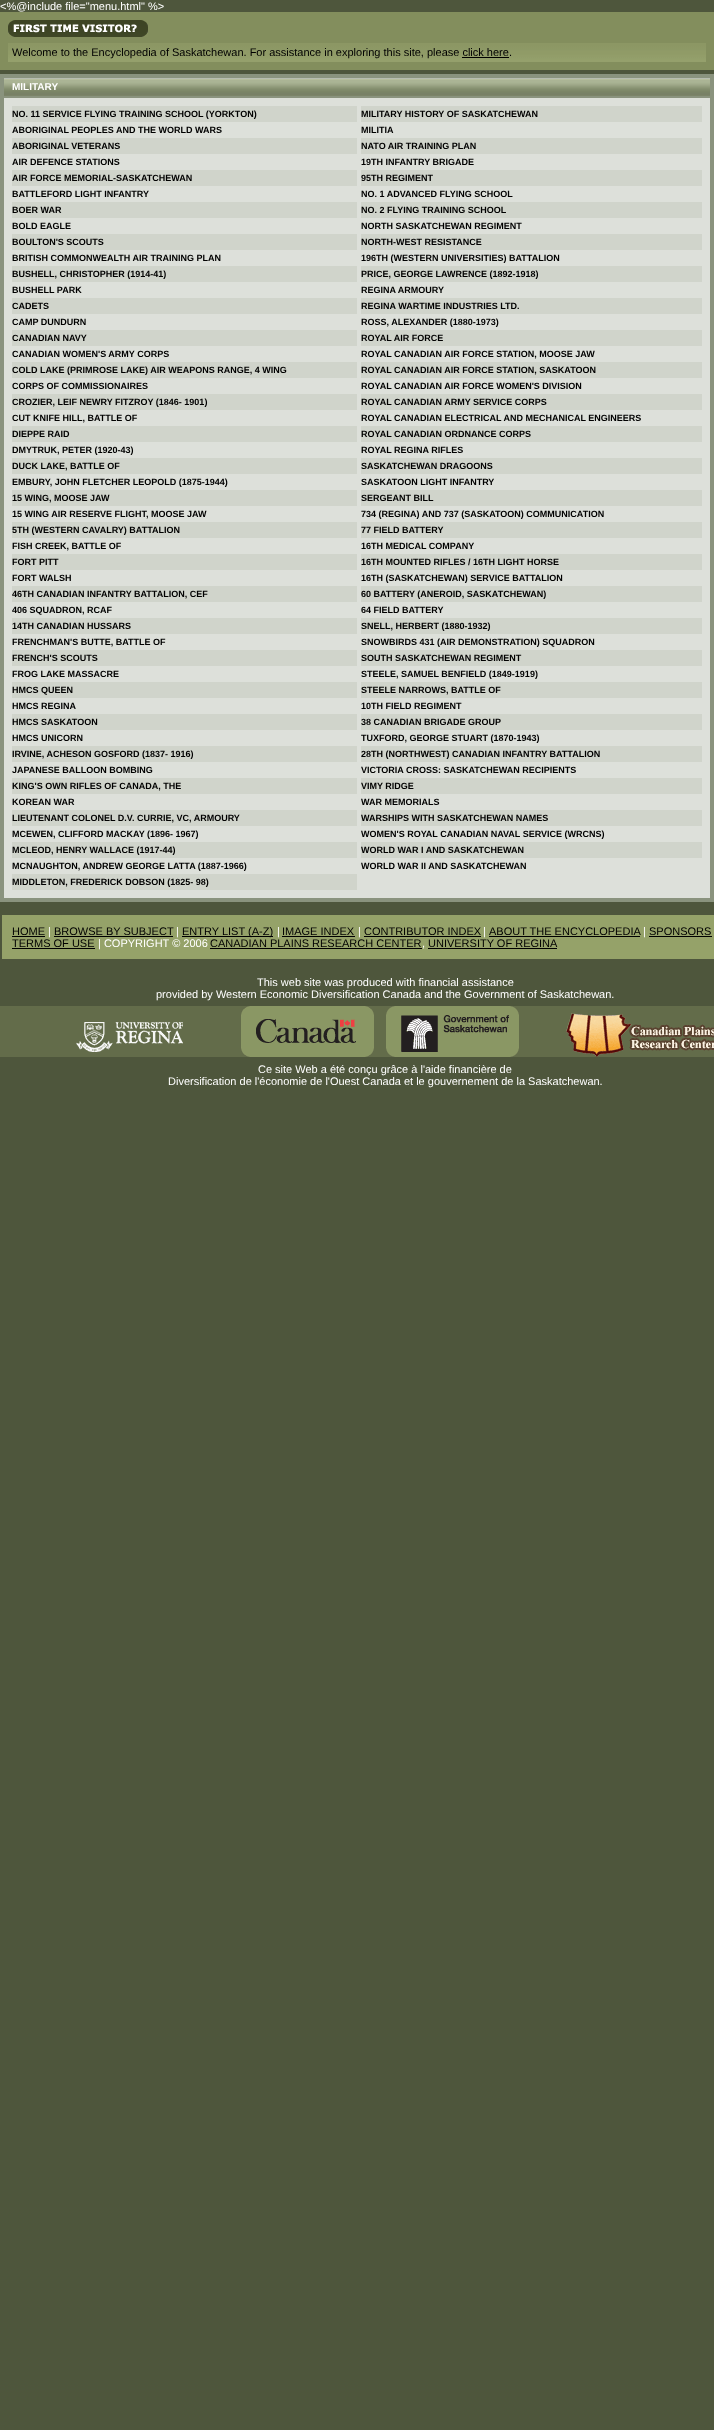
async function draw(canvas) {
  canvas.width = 714
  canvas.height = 2430
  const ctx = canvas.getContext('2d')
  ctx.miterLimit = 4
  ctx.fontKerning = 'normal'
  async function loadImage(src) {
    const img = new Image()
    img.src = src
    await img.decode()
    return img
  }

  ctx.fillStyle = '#4e563c'
  ctx.fillRect(0, 0, 714, 2430)
  ctx.font = '11px Liberation Sans'
  ctx.fillStyle = '#fff'
  ctx.fillText('<%@include file="menu.html" %>', 0, 10)
  ctx.fillStyle = '#838e5d'
  ctx.fillRect(0, 12, 714, 58)
  ctx.drawImage(await loadImage('image0.png'), 8, 20, 140, 17)
  ctx.drawImage(await loadImage('image1.png'), 8, 43, 698, 19)
  ctx.fillStyle = '#000'
  ctx.fillText('Welcome to the Encyclopedia of Saskatchewan. For assistance in exploring this site, please click here.', 12, 56)
  ctx.fillRect(462, 57, 47, 1)
  ctx.fillStyle = '#8a937e'
  ctx.fillRect(0, 74, 714, 828)
  ctx.drawImage(await loadImage('image2.png'), 4, 78, 706, 18)
  ctx.font = 'bold 10px Liberation Sans'
  ctx.fillStyle = '#fff'
  ctx.fillText('MILITARY', 12, 90)
  ctx.fillStyle = '#dde0da'
  ctx.fillRect(4, 98, 706, 800)
  ctx.fillStyle = '#d0d4cb'
  ctx.fillRect(12, 106, 345, 16)
  ctx.font = 'bold 9px Liberation Sans'
  ctx.fillStyle = '#000'
  ctx.fillText('NO. 11 SERVICE FLYING TRAINING SCHOOL (YORKTON)', 12, 117)
  ctx.fillText('ABORIGINAL PEOPLES AND THE WORLD WARS', 12, 133)
  ctx.fillStyle = '#d0d4cb'
  ctx.fillRect(12, 138, 345, 16)
  ctx.fillStyle = '#000'
  ctx.fillText('ABORIGINAL VETERANS', 12, 149)
  ctx.fillText('AIR DEFENCE STATIONS', 12, 165)
  ctx.fillStyle = '#d0d4cb'
  ctx.fillRect(12, 170, 345, 16)
  ctx.fillStyle = '#000'
  ctx.fillText('AIR FORCE MEMORIAL-SASKATCHEWAN', 12, 181)
  ctx.fillText('BATTLEFORD LIGHT INFANTRY', 12, 197)
  ctx.fillStyle = '#d0d4cb'
  ctx.fillRect(12, 202, 345, 16)
  ctx.fillStyle = '#000'
  ctx.fillText('BOER WAR', 12, 213)
  ctx.fillText('BOLD EAGLE', 12, 229)
  ctx.fillStyle = '#d0d4cb'
  ctx.fillRect(12, 234, 345, 16)
  ctx.fillStyle = '#000'
  ctx.fillText('BOULTON\'S SCOUTS', 12, 245)
  ctx.fillText('BRITISH COMMONWEALTH AIR TRAINING PLAN', 12, 261)
  ctx.fillStyle = '#d0d4cb'
  ctx.fillRect(12, 266, 345, 16)
  ctx.fillStyle = '#000'
  ctx.fillText('BUSHELL, CHRISTOPHER (1914-41)', 12, 277)
  ctx.fillText('BUSHELL PARK', 12, 293)
  ctx.fillStyle = '#d0d4cb'
  ctx.fillRect(12, 298, 345, 16)
  ctx.fillStyle = '#000'
  ctx.fillText('CADETS', 12, 309)
  ctx.fillText('CAMP DUNDURN', 12, 325)
  ctx.fillStyle = '#d0d4cb'
  ctx.fillRect(12, 330, 345, 16)
  ctx.fillStyle = '#000'
  ctx.fillText('CANADIAN NAVY', 12, 341)
  ctx.fillText('CANADIAN WOMEN\'S ARMY CORPS', 12, 357)
  ctx.fillStyle = '#d0d4cb'
  ctx.fillRect(12, 362, 345, 16)
  ctx.fillStyle = '#000'
  ctx.fillText('COLD LAKE (PRIMROSE LAKE) AIR WEAPONS RANGE, 4 WING', 12, 373)
  ctx.fillText('CORPS OF COMMISSIONAIRES', 12, 389)
  ctx.fillStyle = '#d0d4cb'
  ctx.fillRect(12, 394, 345, 16)
  ctx.fillStyle = '#000'
  ctx.fillText('CROZIER, LEIF NEWRY FITZROY (1846- 1901)', 12, 405)
  ctx.fillText('CUT KNIFE HILL, BATTLE OF', 12, 421)
  ctx.fillStyle = '#d0d4cb'
  ctx.fillRect(12, 426, 345, 16)
  ctx.fillStyle = '#000'
  ctx.fillText('DIEPPE RAID', 12, 437)
  ctx.fillText('DMYTRUK, PETER (1920-43)', 12, 453)
  ctx.fillStyle = '#d0d4cb'
  ctx.fillRect(12, 458, 345, 16)
  ctx.fillStyle = '#000'
  ctx.fillText('DUCK LAKE, BATTLE OF', 12, 469)
  ctx.fillText('EMBURY, JOHN FLETCHER LEOPOLD (1875-1944)', 12, 485)
  ctx.fillStyle = '#d0d4cb'
  ctx.fillRect(12, 490, 345, 16)
  ctx.fillStyle = '#000'
  ctx.fillText('15 WING, MOOSE JAW', 12, 501)
  ctx.fillText('15 WING AIR RESERVE FLIGHT, MOOSE JAW', 12, 517)
  ctx.fillStyle = '#d0d4cb'
  ctx.fillRect(12, 522, 345, 16)
  ctx.fillStyle = '#000'
  ctx.fillText('5TH (WESTERN CAVALRY) BATTALION', 12, 533)
  ctx.fillText('FISH CREEK, BATTLE OF', 12, 549)
  ctx.fillStyle = '#d0d4cb'
  ctx.fillRect(12, 554, 345, 16)
  ctx.fillStyle = '#000'
  ctx.fillText('FORT PITT', 12, 565)
  ctx.fillText('FORT WALSH', 12, 581)
  ctx.fillStyle = '#d0d4cb'
  ctx.fillRect(12, 586, 345, 16)
  ctx.fillStyle = '#000'
  ctx.fillText('46TH CANADIAN INFANTRY BATTALION, CEF', 12, 597)
  ctx.fillText('406 SQUADRON, RCAF', 12, 613)
  ctx.fillStyle = '#d0d4cb'
  ctx.fillRect(12, 618, 345, 16)
  ctx.fillStyle = '#000'
  ctx.fillText('14TH CANADIAN HUSSARS', 12, 629)
  ctx.fillText('FRENCHMAN\'S BUTTE, BATTLE OF', 12, 645)
  ctx.fillStyle = '#d0d4cb'
  ctx.fillRect(12, 650, 345, 16)
  ctx.fillStyle = '#000'
  ctx.fillText('FRENCH\'S SCOUTS', 12, 661)
  ctx.fillText('FROG LAKE MASSACRE', 12, 677)
  ctx.fillStyle = '#d0d4cb'
  ctx.fillRect(12, 682, 345, 16)
  ctx.fillStyle = '#000'
  ctx.fillText('HMCS QUEEN', 12, 693)
  ctx.fillText('HMCS REGINA', 12, 709)
  ctx.fillStyle = '#d0d4cb'
  ctx.fillRect(12, 714, 345, 16)
  ctx.fillStyle = '#000'
  ctx.fillText('HMCS SASKATOON', 12, 725)
  ctx.fillText('HMCS UNICORN', 12, 741)
  ctx.fillStyle = '#d0d4cb'
  ctx.fillRect(12, 746, 345, 16)
  ctx.fillStyle = '#000'
  ctx.fillText('IRVINE, ACHESON GOSFORD (1837- 1916)', 12, 757)
  ctx.fillText('JAPANESE BALLOON BOMBING', 12, 773)
  ctx.fillStyle = '#d0d4cb'
  ctx.fillRect(12, 778, 345, 16)
  ctx.fillStyle = '#000'
  ctx.fillText('KING\'S OWN RIFLES OF CANADA, THE', 12, 789)
  ctx.fillText('KOREAN WAR', 12, 805)
  ctx.fillStyle = '#d0d4cb'
  ctx.fillRect(12, 810, 345, 16)
  ctx.fillStyle = '#000'
  ctx.fillText('LIEUTENANT COLONEL D.V. CURRIE, VC, ARMOURY', 12, 821)
  ctx.fillText('MCEWEN, CLIFFORD MACKAY (1896- 1967)', 12, 837)
  ctx.fillStyle = '#d0d4cb'
  ctx.fillRect(12, 842, 345, 16)
  ctx.fillStyle = '#000'
  ctx.fillText('MCLEOD, HENRY WALLACE (1917-44)', 12, 853)
  ctx.fillText('MCNAUGHTON, ANDREW GEORGE LATTA (1887-1966)', 12, 869)
  ctx.fillStyle = '#d0d4cb'
  ctx.fillRect(12, 874, 345, 16)
  ctx.fillStyle = '#000'
  ctx.fillText('MIDDLETON, FREDERICK DOBSON (1825- 98)', 12, 885)
  ctx.fillStyle = '#d0d4cb'
  ctx.fillRect(361, 106, 341, 16)
  ctx.fillStyle = '#000'
  ctx.fillText('MILITARY HISTORY OF SASKATCHEWAN', 361, 117)
  ctx.fillText('MILITIA', 361, 133)
  ctx.fillStyle = '#d0d4cb'
  ctx.fillRect(361, 138, 341, 16)
  ctx.fillStyle = '#000'
  ctx.fillText('NATO AIR TRAINING PLAN', 361, 149)
  ctx.fillText('19TH INFANTRY BRIGADE', 361, 165)
  ctx.fillStyle = '#d0d4cb'
  ctx.fillRect(361, 170, 341, 16)
  ctx.fillStyle = '#000'
  ctx.fillText('95TH REGIMENT', 361, 181)
  ctx.fillText('NO. 1 ADVANCED FLYING SCHOOL', 361, 197)
  ctx.fillStyle = '#d0d4cb'
  ctx.fillRect(361, 202, 341, 16)
  ctx.fillStyle = '#000'
  ctx.fillText('NO. 2 FLYING TRAINING SCHOOL', 361, 213)
  ctx.fillText('NORTH SASKATCHEWAN REGIMENT', 361, 229)
  ctx.fillStyle = '#d0d4cb'
  ctx.fillRect(361, 234, 341, 16)
  ctx.fillStyle = '#000'
  ctx.fillText('NORTH-WEST RESISTANCE', 361, 245)
  ctx.fillText('196TH (WESTERN UNIVERSITIES) BATTALION', 361, 261)
  ctx.fillStyle = '#d0d4cb'
  ctx.fillRect(361, 266, 341, 16)
  ctx.fillStyle = '#000'
  ctx.fillText('PRICE, GEORGE LAWRENCE (1892-1918)', 361, 277)
  ctx.fillText('REGINA ARMOURY', 361, 293)
  ctx.fillStyle = '#d0d4cb'
  ctx.fillRect(361, 298, 341, 16)
  ctx.fillStyle = '#000'
  ctx.fillText('REGINA WARTIME INDUSTRIES LTD.', 361, 309)
  ctx.fillText('ROSS, ALEXANDER (1880-1973)', 361, 325)
  ctx.fillStyle = '#d0d4cb'
  ctx.fillRect(361, 330, 341, 16)
  ctx.fillStyle = '#000'
  ctx.fillText('ROYAL AIR FORCE', 361, 341)
  ctx.fillText('ROYAL CANADIAN AIR FORCE STATION, MOOSE JAW', 361, 357)
  ctx.fillStyle = '#d0d4cb'
  ctx.fillRect(361, 362, 341, 16)
  ctx.fillStyle = '#000'
  ctx.fillText('ROYAL CANADIAN AIR FORCE STATION, SASKATOON', 361, 373)
  ctx.fillText('ROYAL CANADIAN AIR FORCE WOMEN\'S DIVISION', 361, 389)
  ctx.fillStyle = '#d0d4cb'
  ctx.fillRect(361, 394, 341, 16)
  ctx.fillStyle = '#000'
  ctx.fillText('ROYAL CANADIAN ARMY SERVICE CORPS', 361, 405)
  ctx.fillText('ROYAL CANADIAN ELECTRICAL AND MECHANICAL ENGINEERS', 361, 421)
  ctx.fillStyle = '#d0d4cb'
  ctx.fillRect(361, 426, 341, 16)
  ctx.fillStyle = '#000'
  ctx.fillText('ROYAL CANADIAN ORDNANCE CORPS', 361, 437)
  ctx.fillText('ROYAL REGINA RIFLES', 361, 453)
  ctx.fillStyle = '#d0d4cb'
  ctx.fillRect(361, 458, 341, 16)
  ctx.fillStyle = '#000'
  ctx.fillText('SASKATCHEWAN DRAGOONS', 361, 469)
  ctx.fillText('SASKATOON LIGHT INFANTRY', 361, 485)
  ctx.fillStyle = '#d0d4cb'
  ctx.fillRect(361, 490, 341, 16)
  ctx.fillStyle = '#000'
  ctx.fillText('SERGEANT BILL', 361, 501)
  ctx.fillText('734 (REGINA) AND 737 (SASKATOON) COMMUNICATION', 361, 517)
  ctx.fillStyle = '#d0d4cb'
  ctx.fillRect(361, 522, 341, 16)
  ctx.fillStyle = '#000'
  ctx.fillText('77 FIELD BATTERY', 361, 533)
  ctx.fillText('16TH MEDICAL COMPANY', 361, 549)
  ctx.fillStyle = '#d0d4cb'
  ctx.fillRect(361, 554, 341, 16)
  ctx.fillStyle = '#000'
  ctx.fillText('16TH MOUNTED RIFLES / 16TH LIGHT HORSE', 361, 565)
  ctx.fillText('16TH (SASKATCHEWAN) SERVICE BATTALION', 361, 581)
  ctx.fillStyle = '#d0d4cb'
  ctx.fillRect(361, 586, 341, 16)
  ctx.fillStyle = '#000'
  ctx.fillText('60 BATTERY (ANEROID, SASKATCHEWAN)', 361, 597)
  ctx.fillText('64 FIELD BATTERY', 361, 613)
  ctx.fillStyle = '#d0d4cb'
  ctx.fillRect(361, 618, 341, 16)
  ctx.fillStyle = '#000'
  ctx.fillText('SNELL, HERBERT (1880-1932)', 361, 629)
  ctx.fillText('SNOWBIRDS 431 (AIR DEMONSTRATION) SQUADRON', 361, 645)
  ctx.fillStyle = '#d0d4cb'
  ctx.fillRect(361, 650, 341, 16)
  ctx.fillStyle = '#000'
  ctx.fillText('SOUTH SASKATCHEWAN REGIMENT', 361, 661)
  ctx.fillText('STEELE, SAMUEL BENFIELD (1849-1919)', 361, 677)
  ctx.fillStyle = '#d0d4cb'
  ctx.fillRect(361, 682, 341, 16)
  ctx.fillStyle = '#000'
  ctx.fillText('STEELE NARROWS, BATTLE OF', 361, 693)
  ctx.fillText('10TH FIELD REGIMENT', 361, 709)
  ctx.fillStyle = '#d0d4cb'
  ctx.fillRect(361, 714, 341, 16)
  ctx.fillStyle = '#000'
  ctx.fillText('38 CANADIAN BRIGADE GROUP', 361, 725)
  ctx.fillText('TUXFORD, GEORGE STUART (1870-1943)', 361, 741)
  ctx.fillStyle = '#d0d4cb'
  ctx.fillRect(361, 746, 341, 16)
  ctx.fillStyle = '#000'
  ctx.fillText('28TH (NORTHWEST) CANADIAN INFANTRY BATTALION', 361, 757)
  ctx.fillText('VICTORIA CROSS: SASKATCHEWAN RECIPIENTS', 361, 773)
  ctx.fillStyle = '#d0d4cb'
  ctx.fillRect(361, 778, 341, 16)
  ctx.fillStyle = '#000'
  ctx.fillText('VIMY RIDGE', 361, 789)
  ctx.fillText('WAR MEMORIALS', 361, 805)
  ctx.fillStyle = '#d0d4cb'
  ctx.fillRect(361, 810, 341, 16)
  ctx.fillStyle = '#000'
  ctx.fillText('WARSHIPS WITH SASKATCHEWAN NAMES', 361, 821)
  ctx.fillText('WOMEN\'S ROYAL CANADIAN NAVAL SERVICE (WRCNS)', 361, 837)
  ctx.fillStyle = '#d0d4cb'
  ctx.fillRect(361, 842, 341, 16)
  ctx.fillStyle = '#000'
  ctx.fillText('WORLD WAR I AND SASKATCHEWAN', 361, 853)
  ctx.fillText('WORLD WAR II AND SASKATCHEWAN', 361, 869)
  ctx.fillStyle = '#95a269'
  ctx.fillRect(2, 915, 712, 44)
  ctx.font = '11px Liberation Sans'
  ctx.fillStyle = '#000'
  ctx.fillText('HOME', 12, 935)
  ctx.fillRect(12, 936, 33, 1)
  ctx.fillStyle = '#fff'
  ctx.fillText('|', 48, 935)
  ctx.fillStyle = '#000'
  ctx.fillText('BROWSE BY SUBJECT', 54, 935)
  ctx.fillRect(54, 936, 119, 1)
  ctx.fillStyle = '#fff'
  ctx.fillText('|', 176, 935)
  ctx.fillStyle = '#000'
  ctx.fillRect(182, 936, 91, 1)
  ctx.fillText('ENTRY LIST (A-Z)', 182, 935)
  ctx.fillStyle = '#fff'
  ctx.fillText('|', 277, 935)
  ctx.fillStyle = '#000'
  ctx.fillText('IMAGE INDEX', 282, 935)
  ctx.fillRect(282, 936, 73, 1)
  ctx.fillStyle = '#fff'
  ctx.fillText('|', 358, 935)
  ctx.fillStyle = '#000'
  ctx.fillText('CONTRIBUTOR INDEX', 364, 935)
  ctx.fillRect(364, 936, 117, 1)
  ctx.fillStyle = '#fff'
  ctx.fillText('|', 483, 935)
  ctx.fillStyle = '#000'
  ctx.fillText('ABOUT THE ENCYCLOPEDIA', 489, 935)
  ctx.fillRect(489, 936, 151, 1)
  ctx.fillStyle = '#fff'
  ctx.fillText('|', 643, 935)
  ctx.fillStyle = '#000'
  ctx.fillText('SPONSORS', 649, 935)
  ctx.fillRect(649, 936, 63, 1)
  ctx.fillText('TERMS OF USE', 12, 947)
  ctx.fillRect(12, 948, 83, 1)
  ctx.fillStyle = '#fff'
  ctx.fillText('| COPYRIGHT © 2006', 98, 947)
  ctx.fillStyle = '#000'
  ctx.fillText('CANADIAN PLAINS RESEARCH CENTER', 210, 947)
  ctx.fillRect(210, 948, 212, 1)
  ctx.fillStyle = '#fff'
  ctx.fillText(',', 422, 947)
  ctx.fillStyle = '#000'
  ctx.fillText('UNIVERSITY OF REGINA', 428, 947)
  ctx.fillRect(428, 948, 129, 1)
  ctx.fillStyle = '#fff'
  ctx.fillText('This web site was produced with financial assistance', 257, 986)
  ctx.fillText('provided by Western Economic Diversification Canada and the Government of Saskatchewan.', 156, 998)
  ctx.drawImage(await loadImage('image3.png'), 0, 1006, 235, 51)
  ctx.drawImage(await loadImage('image4.png'), 235, 1006, 145, 51)
  ctx.drawImage(await loadImage('image5.png'), 380, 1006, 145, 51)
  ctx.drawImage(await loadImage('image6.png'), 525, 1006, 189, 51)
  ctx.fillText('Ce site Web a été conçu grâce à l\'aide financière de', 258, 1073)
  ctx.fillText('Diversification de l\'économie de l\'Ouest Canada et le gouvernement de la Saskatchewan.', 168, 1085)
}

draw(document.querySelector('canvas'))
